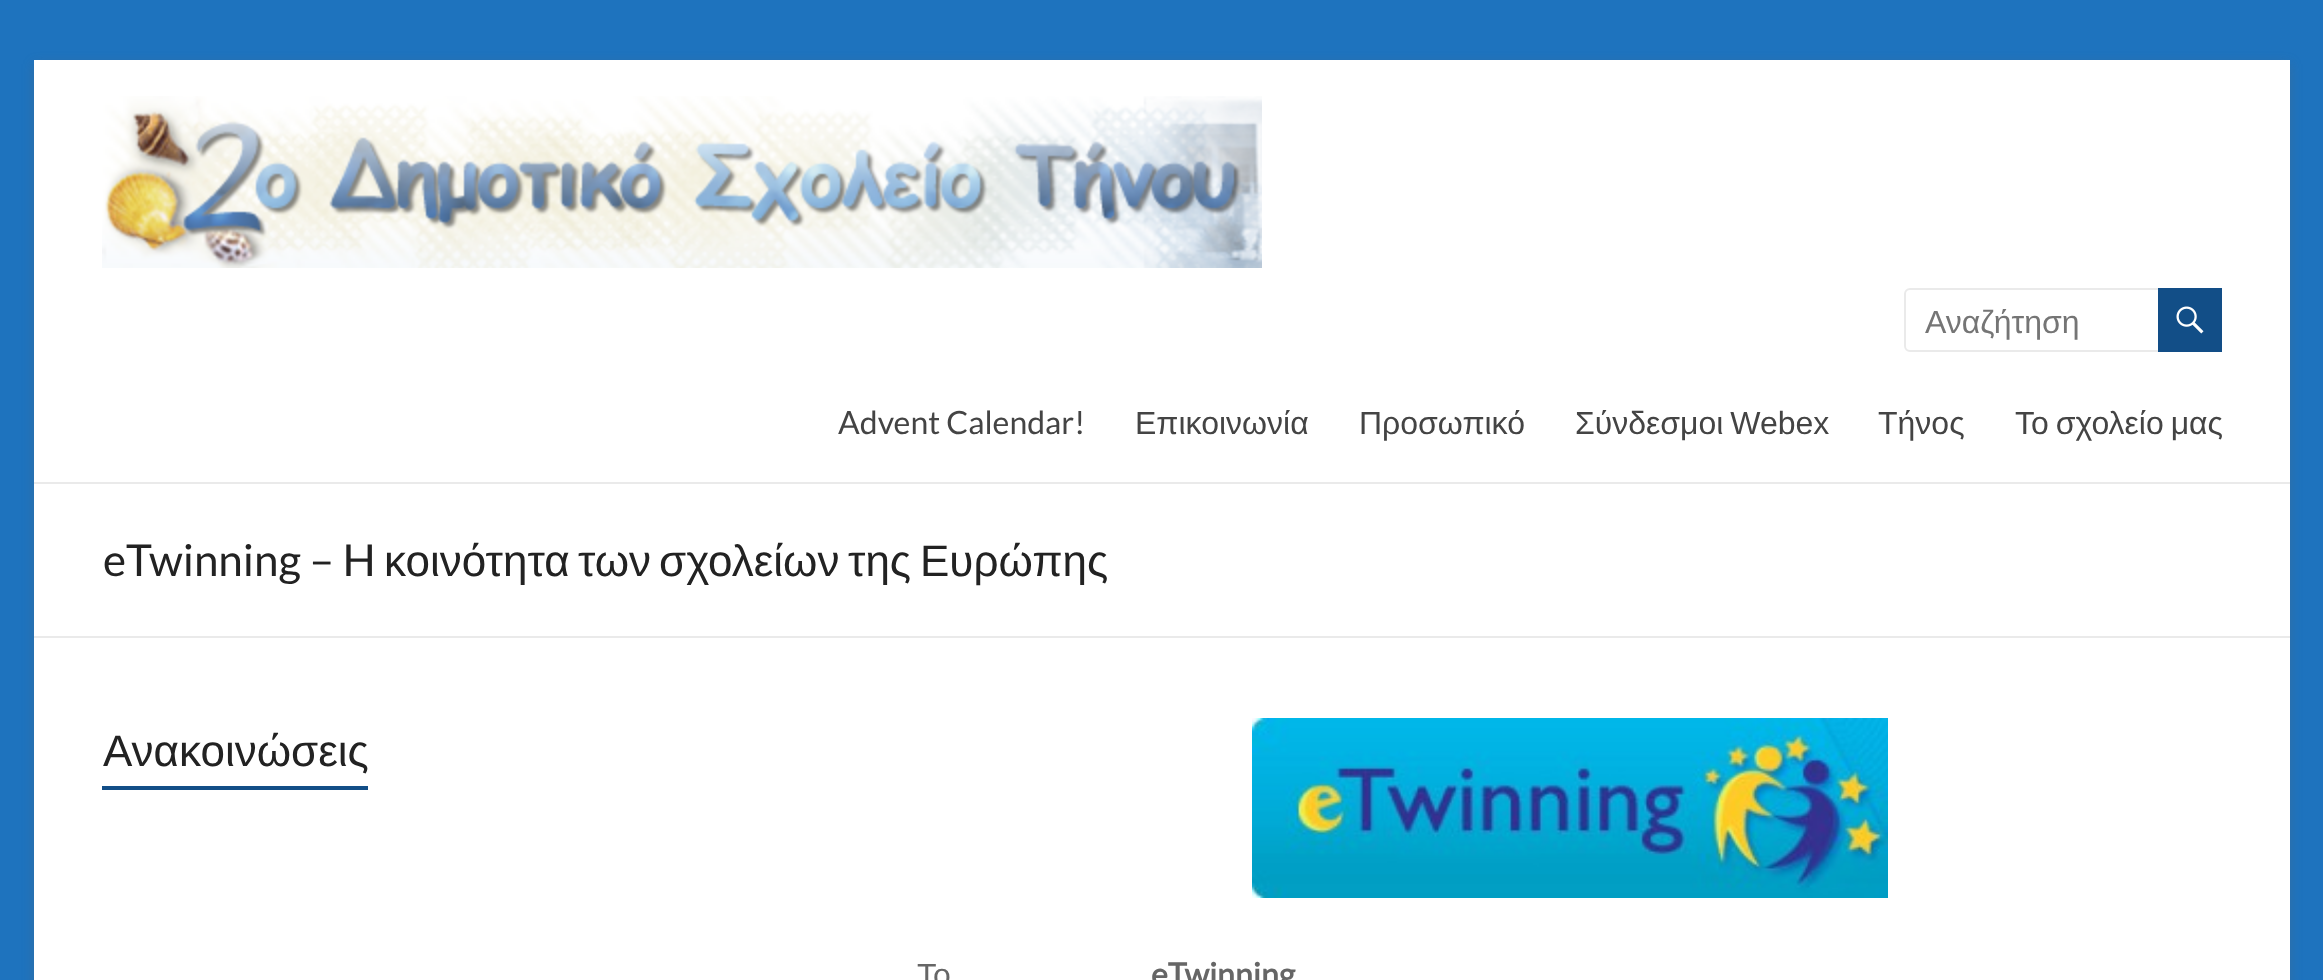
async function draw(canvas) {
  canvas.width = 2323
  canvas.height = 980
  const ctx = canvas.getContext('2d')
  ctx.miterLimit = 4
  ctx.fontKerning = 'normal'
  async function loadImage(src) {
    const img = new Image()
    img.src = src
    await img.decode()
    return img
  }

  ctx.fillStyle = '#1e73be'
  ctx.fillRect(0, 0, 2323, 980)
  ctx.fillStyle = '#6464644d'
  ctx.filter = 'blur(6px)'
  ctx.beginPath()
  ctx.rect(34, 64, 2256, 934)
  ctx.fill()
  ctx.filter = 'none'
  ctx.fillStyle = '#fff'
  ctx.fillRect(34, 60, 2256, 920)
  ctx.fillStyle = '#eaeaea'
  ctx.fillRect(34, 482, 2256, 2)
  ctx.drawImage(await loadImage('image0.png'), 102, 96, 1160, 172)
  ctx.beginPath()
  ctx.roundRect(1905, 289, 258, 62, 5)
  ctx.strokeStyle = '#eaeaea'
  ctx.lineWidth = 2
  ctx.stroke()
  ctx.font = '32px Liberation Sans'
  ctx.fillStyle = '#757575'
  ctx.fillText('Αναζήτηση', 1925, 333)
  ctx.fillStyle = '#124e87'
  ctx.fillRect(2158, 288, 64, 64)
  ctx.drawImage(await loadImage('image1.png'), 2176, 306, 28, 28)
  ctx.font = '32px Lato'
  ctx.fillStyle = '#444'
  ctx.fillText('Advent Calendar!', 838, 434)
  ctx.font = '32px Liberation Sans'
  ctx.fillText('Επικοινωνία', 1135, 434)
  ctx.fillText('Προσωπικό', 1359, 434)
  ctx.wordSpacing = '-2px'
  ctx.fillText('Σύνδεσμοι Webex', 1575, 434)
  ctx.wordSpacing = '0px'
  ctx.fillText('Τήνος', 1878, 434)
  ctx.wordSpacing = '-2px'
  ctx.fillText('Το σχολείο μας', 2015, 434)
  ctx.fillStyle = '#eaeaea'
  ctx.fillRect(34, 636, 2256, 2)
  ctx.wordSpacing = '0px'
  ctx.font = '44px Lato'
  ctx.fillStyle = '#222'
  ctx.fillText('eTwinning – H', 103, 576)
  ctx.font = '44px Liberation Sans'
  ctx.fillText('κοινότητα', 384, 576)
  ctx.fillText('των', 578, 576)
  ctx.fillText('σχολείων', 659, 576)
  ctx.fillText('της', 848, 576)
  ctx.fillText('Ευρώπης', 920, 576)
  ctx.fillText('Ανακοινώσεις', 103, 766)
  ctx.fillStyle = '#124e87'
  ctx.fillRect(102, 786, 266, 4)
  ctx.drawImage(await loadImage('image2.png'), 1252, 718, 636, 180)
  ctx.font = '32px Liberation Sans'
  ctx.fillStyle = '#666'
  ctx.fillText('Το', 917, 986)
  ctx.font = 'bold 32px Lato'
  ctx.fillText('eTwinning', 1151, 986)
}

draw(document.querySelector('canvas'))
